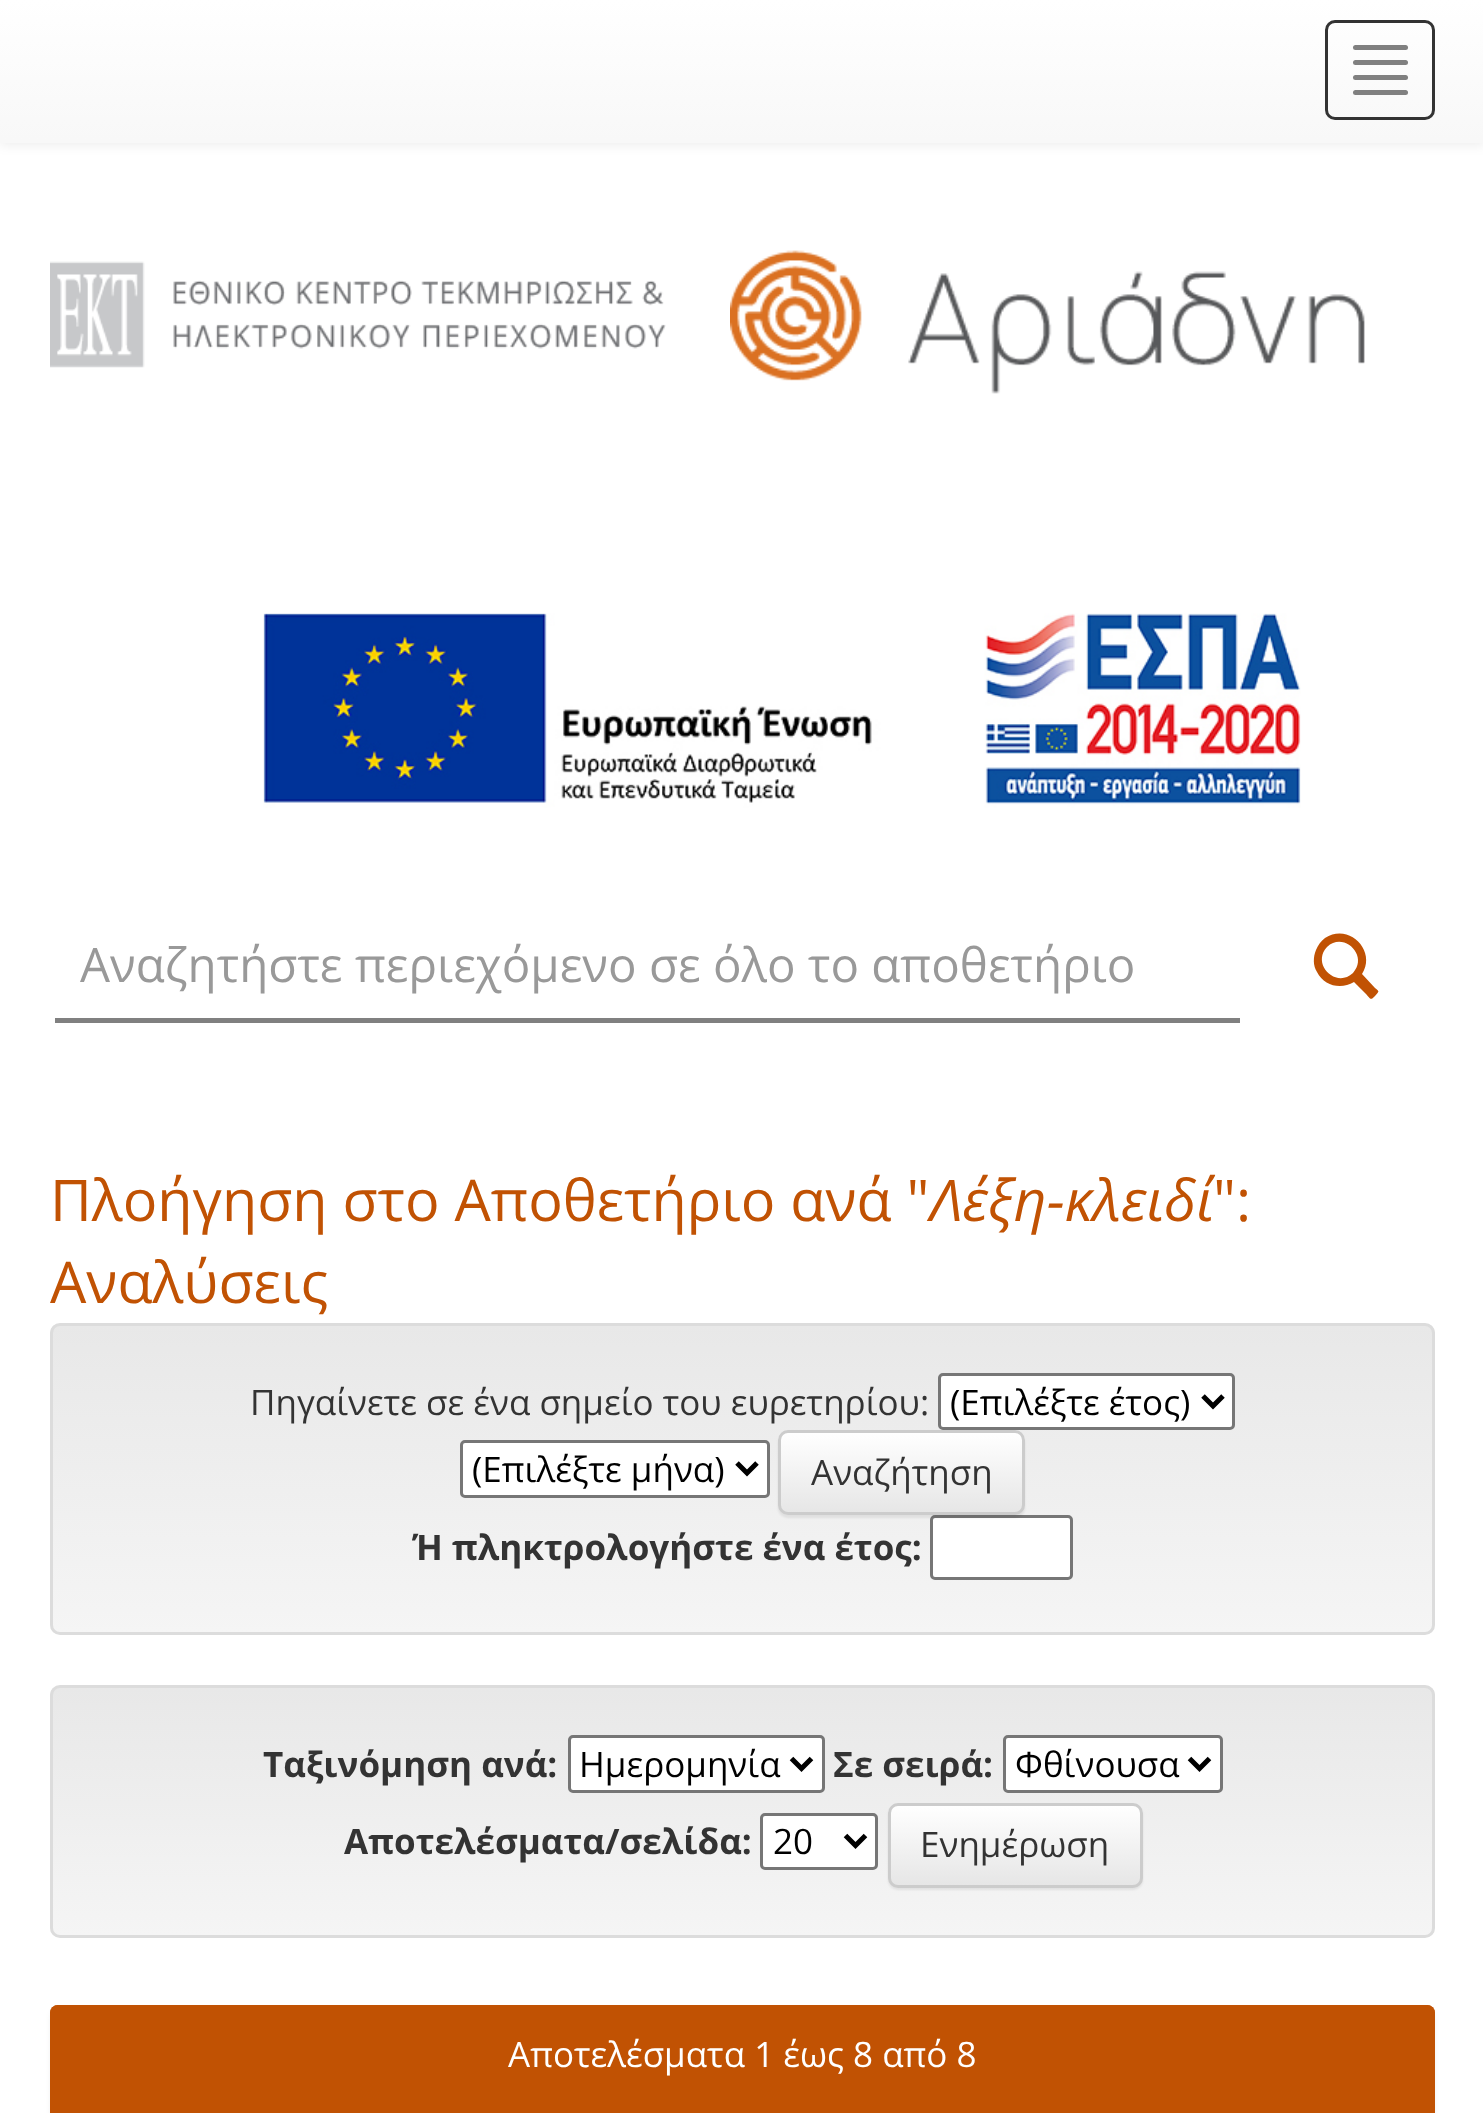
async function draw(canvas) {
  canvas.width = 1483
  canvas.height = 2113
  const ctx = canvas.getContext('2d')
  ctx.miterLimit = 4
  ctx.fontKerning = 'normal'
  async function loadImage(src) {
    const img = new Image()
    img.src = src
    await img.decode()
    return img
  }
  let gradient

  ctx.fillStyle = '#fff'
  ctx.fillRect(0, 0, 1483, 2113)
  ctx.fillStyle = '#00000012'
  ctx.filter = 'blur(6px)'
  ctx.beginPath()
  ctx.rect(0, 3, 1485, 142)
  ctx.fill()
  ctx.filter = 'none'
  gradient = ctx.createLinearGradient(743, 0, 743, 140)
  gradient.addColorStop(0, '#fff')
  gradient.addColorStop(1, '#f8f8f8')
  ctx.fillStyle = gradient
  ctx.fillRect(0, 0, 1483, 140)
  ctx.fillStyle = '#f8f8f8'
  ctx.fillRect(0, 140, 1483, 3)
  ctx.beginPath()
  ctx.roundRect(1326.5, 21.5, 107, 97, 8.5)
  ctx.strokeStyle = '#333'
  ctx.lineWidth = 3
  ctx.stroke()
  ctx.fillStyle = '#808080'
  ctx.beginPath()
  ctx.roundRect(1353, 45, 55, 5, 2.5)
  ctx.fill()
  ctx.beginPath()
  ctx.roundRect(1353, 60, 55, 5, 2.5)
  ctx.fill()
  ctx.beginPath()
  ctx.roundRect(1353, 75, 55, 5, 2.5)
  ctx.fill()
  ctx.beginPath()
  ctx.roundRect(1353, 90, 55, 5, 2.5)
  ctx.fill()
  ctx.drawImage(await loadImage('image0.png'), 50, 261, 616, 107)
  ctx.drawImage(await loadImage('image1.png'), 730, 250, 635, 144)
  ctx.drawImage(await loadImage('image2.png'), 263, 613, 1038, 195)
  ctx.fillRect(55, 1018, 1185, 5)
  ctx.font = '47.5px Open Sans'
  ctx.fillStyle = '#999'
  ctx.fillText('Αναζητήστε περιεχόμενο σε όλο το αποθετήριο', 80, 982)
  ctx.fillStyle = '#c15203'
  ctx.beginPath()
  ctx.moveTo(1362, 974)
  ctx.lineTo(1375, 988)
  ctx.bezierCurveTo(1380, 992, 1379, 991, 1375, 996)
  ctx.bezierCurveTo(1370, 1001, 1371, 999, 1365, 993)
  ctx.lineTo(1354, 982)
  ctx.bezierCurveTo(1341, 990, 1324, 986, 1317, 972)
  ctx.bezierCurveTo(1313, 966, 1313, 957, 1316, 950)
  ctx.bezierCurveTo(1318, 945, 1321, 941, 1325, 938)
  ctx.bezierCurveTo(1349, 922, 1377, 951, 1362, 974)
  ctx.closePath()
  ctx.moveTo(1327, 947)
  ctx.bezierCurveTo(1311, 964, 1336, 989, 1353, 973)
  ctx.bezierCurveTo(1369, 956, 1344, 931, 1327, 947)
  ctx.closePath()
  ctx.fill()
  ctx.font = '57.5px Open Sans'
  ctx.fillText('Πλοήγηση στο Αποθετήριο ανά "', 50, 1221)
  ctx.font = 'italic 57.5px Open Sans'
  ctx.fillText('Λέξη-κλειδί', 930, 1221)
  ctx.font = '57.5px Open Sans'
  ctx.fillText('":', 1213, 1221)
  ctx.fillText('Αναλύσεις', 50, 1303)
  ctx.save()
  ctx.beginPath()
  ctx.roundRect(50, 1323, 1385, 312, 10)
  ctx.clip()
  gradient = ctx.createLinearGradient(743, 1325, 743, 1633)
  gradient.addColorStop(0, '#e8e8e8')
  gradient.addColorStop(1, '#f5f5f5')
  ctx.fillStyle = gradient
  ctx.fillRect(50, 1325, 1385, 308)
  ctx.restore()
  ctx.beginPath()
  ctx.roundRect(51.5, 1324.5, 1382, 309, 8.5)
  ctx.strokeStyle = '#dcdcdc'
  ctx.stroke()
  ctx.font = '35px Open Sans'
  ctx.fillStyle = '#333'
  ctx.fillText('Πηγαίνετε σε ένα σημείο του ευρετηρίου:', 250, 1415)
  ctx.fillStyle = '#fff'
  ctx.beginPath()
  ctx.roundRect(939.5, 1374.5, 294, 54, 3.5)
  ctx.fill()
  ctx.strokeStyle = '#767676'
  ctx.stroke()
  ctx.beginPath()
  ctx.moveTo(1203, 1396)
  ctx.lineTo(1213, 1406)
  ctx.lineTo(1223, 1396)
  ctx.strokeStyle = '#000'
  ctx.lineWidth = 5
  ctx.stroke()
  ctx.fillStyle = '#000'
  ctx.fillText('(Επιλέξτε έτος)', 950, 1415)
  ctx.fillStyle = '#fff'
  ctx.beginPath()
  ctx.roundRect(461.5, 1441.5, 307, 55, 3.5)
  ctx.fill()
  ctx.strokeStyle = '#767676'
  ctx.lineWidth = 3
  ctx.stroke()
  ctx.beginPath()
  ctx.moveTo(737, 1463)
  ctx.lineTo(747, 1473)
  ctx.lineTo(757, 1463)
  ctx.strokeStyle = '#000'
  ctx.lineWidth = 5
  ctx.stroke()
  ctx.fillStyle = '#000'
  ctx.fillText('(Επιλέξτε μήνα)', 472, 1482)
  ctx.fillStyle = '#fff'
  ctx.beginPath()
  ctx.roundRect(931.5, 1516.5, 140, 62, 3.5)
  ctx.fill()
  ctx.strokeStyle = '#767676'
  ctx.lineWidth = 3
  ctx.stroke()
  ctx.fillStyle = '#00000012'
  ctx.filter = 'blur(1px)'
  ctx.beginPath()
  ctx.roundRect(778, 1433, 247, 85, 10)
  ctx.fill()
  ctx.filter = 'none'
  ctx.save()
  ctx.beginPath()
  ctx.roundRect(778, 1430, 247, 85, 10)
  ctx.clip()
  gradient = ctx.createLinearGradient(901, 1433, 901, 1513)
  gradient.addColorStop(0, '#fff')
  gradient.addColorStop(1, '#e6e6e6')
  ctx.fillStyle = gradient
  ctx.fillRect(778, 1433, 247, 80)
  ctx.restore()
  ctx.fillStyle = '#ffffff26'
  ctx.beginPath()
  ctx.moveTo(788, 1435)
  ctx.lineTo(1015, 1435)
  ctx.bezierCurveTo(1024, 1435, 1022, 1448, 1022, 1453)
  ctx.lineTo(1022, 1509)
  ctx.bezierCurveTo(1023, 1508, 1023, 1506, 1023, 1505)
  ctx.lineTo(1023, 1441)
  ctx.bezierCurveTo(1023, 1437, 1019, 1433, 1015, 1433)
  ctx.lineTo(788, 1433)
  ctx.bezierCurveTo(784, 1433, 780, 1437, 780, 1441)
  ctx.lineTo(780, 1442)
  ctx.bezierCurveTo(780, 1438, 783, 1435, 788, 1435)
  ctx.closePath()
  ctx.fill()
  ctx.beginPath()
  ctx.roundRect(779.5, 1431.5, 244, 82, 8.5)
  ctx.strokeStyle = '#ccc'
  ctx.stroke()
  ctx.fillStyle = '#333'
  ctx.fillText('Αναζήτηση', 811, 1485)
  ctx.font = 'bold 35px Open Sans'
  ctx.fillText('Ή πληκτρολογήστε ένα έτος:', 412, 1560)
  ctx.save()
  ctx.beginPath()
  ctx.roundRect(50, 1685, 1385, 253, 10)
  ctx.clip()
  gradient = ctx.createLinearGradient(743, 1688, 743, 1935)
  gradient.addColorStop(0, '#e8e8e8')
  gradient.addColorStop(1, '#f5f5f5')
  ctx.fillStyle = gradient
  ctx.fillRect(50, 1688, 1385, 247)
  ctx.restore()
  ctx.beginPath()
  ctx.roundRect(51.5, 1686.5, 1382, 250, 8.5)
  ctx.strokeStyle = '#dcdcdc'
  ctx.stroke()
  ctx.fillText('Ταξινόμηση ανά:', 263, 1777)
  ctx.fillStyle = '#fff'
  ctx.beginPath()
  ctx.roundRect(569.5, 1736.5, 254, 55, 3.5)
  ctx.fill()
  ctx.strokeStyle = '#767676'
  ctx.stroke()
  ctx.beginPath()
  ctx.moveTo(791.5, 1758.5)
  ctx.lineTo(801.5, 1768.5)
  ctx.lineTo(811.5, 1758.5)
  ctx.strokeStyle = '#000'
  ctx.lineWidth = 5
  ctx.stroke()
  ctx.font = '35px Open Sans'
  ctx.fillStyle = '#000'
  ctx.fillText('Ημερομηνία', 579, 1777)
  ctx.font = 'bold 35px Open Sans'
  ctx.fillStyle = '#333'
  ctx.fillText('Σε σειρά:', 833, 1777)
  ctx.fillStyle = '#fff'
  ctx.beginPath()
  ctx.roundRect(1004.5, 1736.5, 217, 55, 3.5)
  ctx.fill()
  ctx.strokeStyle = '#767676'
  ctx.lineWidth = 3
  ctx.stroke()
  ctx.beginPath()
  ctx.moveTo(1189.5, 1758.5)
  ctx.lineTo(1199.5, 1768.5)
  ctx.lineTo(1209.5, 1758.5)
  ctx.strokeStyle = '#000'
  ctx.lineWidth = 5
  ctx.stroke()
  ctx.font = '35px Open Sans'
  ctx.fillStyle = '#000'
  ctx.fillText('Φθίνουσα', 1015, 1777)
  ctx.font = 'bold 35px Open Sans'
  ctx.fillStyle = '#333'
  ctx.fillText('Αποτελέσματα/σελίδα:', 344, 1854)
  ctx.fillStyle = '#fff'
  ctx.beginPath()
  ctx.roundRect(761.5, 1814.5, 115, 54, 3.5)
  ctx.fill()
  ctx.strokeStyle = '#767676'
  ctx.lineWidth = 3
  ctx.stroke()
  ctx.beginPath()
  ctx.moveTo(845.5, 1835.5)
  ctx.lineTo(855.5, 1845.5)
  ctx.lineTo(865.5, 1835.5)
  ctx.strokeStyle = '#000'
  ctx.lineWidth = 5
  ctx.stroke()
  ctx.font = '35px Open Sans'
  ctx.fillStyle = '#000'
  ctx.fillText('20', 773, 1854)
  ctx.fillStyle = '#00000012'
  ctx.filter = 'blur(1px)'
  ctx.beginPath()
  ctx.roundRect(888, 1805, 255, 85, 10)
  ctx.fill()
  ctx.filter = 'none'
  ctx.save()
  ctx.beginPath()
  ctx.roundRect(888, 1803, 255, 85, 10)
  ctx.clip()
  gradient = ctx.createLinearGradient(1015, 1805, 1015, 1885)
  gradient.addColorStop(0, '#fff')
  gradient.addColorStop(1, '#e6e6e6')
  ctx.fillStyle = gradient
  ctx.fillRect(888, 1805, 255, 80)
  ctx.restore()
  ctx.beginPath()
  ctx.roundRect(889.5, 1804.5, 252, 82, 8.5)
  ctx.strokeStyle = '#ccc'
  ctx.lineWidth = 3
  ctx.stroke()
  ctx.fillStyle = '#333'
  ctx.fillText('Ενημέρωση', 920, 1857)
  ctx.fillStyle = '#0000000d'
  ctx.filter = 'blur(2.5px)'
  ctx.beginPath()
  ctx.roundRect(50, 2008, 1385, 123, 10)
  ctx.fill()
  ctx.filter = 'none'
  ctx.fillStyle = '#c15203'
  ctx.beginPath()
  ctx.roundRect(50, 2005, 1385, 103, [8, 8, 0, 0])
  ctx.fill()
  ctx.beginPath()
  ctx.roundRect(50, 2005, 1385, 100, [8, 8, 0, 0])
  ctx.fill()
  ctx.fillStyle = '#fff'
  ctx.fillText('Αποτελέσματα 1 έως 8 από 8', 508, 2067)
  ctx.fillStyle = '#c15203'
  ctx.fillRect(50, 2108, 1385, 5)
}

draw(document.querySelector('canvas'))
